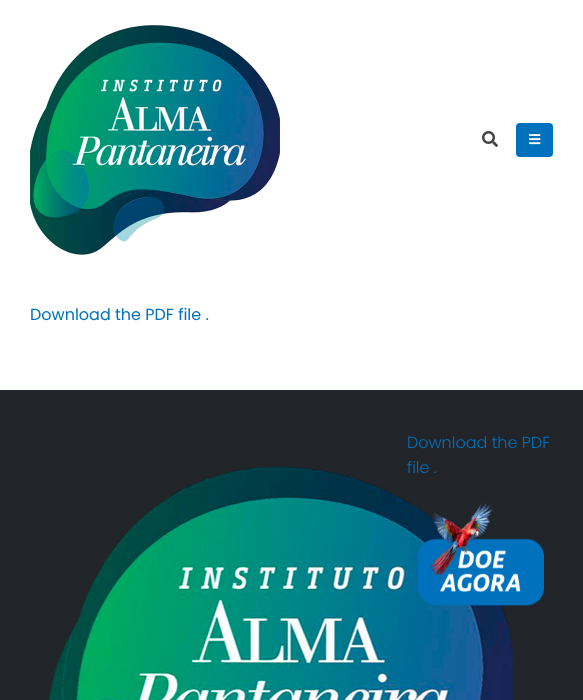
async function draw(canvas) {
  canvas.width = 583
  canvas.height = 700
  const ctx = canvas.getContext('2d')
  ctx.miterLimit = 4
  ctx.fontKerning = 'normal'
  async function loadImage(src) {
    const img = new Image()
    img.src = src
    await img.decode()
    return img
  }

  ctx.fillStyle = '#fff'
  ctx.fillRect(0, 0, 583, 700)
  ctx.drawImage(await loadImage('image0.png'), 30, 25, 250, 230)
  ctx.drawImage(await loadImage('image1.png'), 482, 131, 16, 16)
  ctx.fillStyle = '#0071bc'
  ctx.beginPath()
  ctx.roundRect(516, 123, 37, 34, 4)
  ctx.fill()
  ctx.drawImage(await loadImage('image2.png'), 529, 134, 12, 11)
  ctx.font = '16px Poppins'
  ctx.fillText('Download the PDF file .', 30, 320)
  ctx.fillStyle = '#212529'
  ctx.fillRect(0, 390, 583, 310)
  ctx.drawImage(await loadImage('image3.png'), 48, 466, 465, 234)
  ctx.font = '300 16px Poppins'
  ctx.fillStyle = '#0071bc'
  ctx.fillText('Download the PDF', 407, 448)
  ctx.fillText('file .', 407, 473)
  ctx.drawImage(await loadImage('image4.png'), 418, 503, 126, 103)
}

draw(document.querySelector('canvas'))
